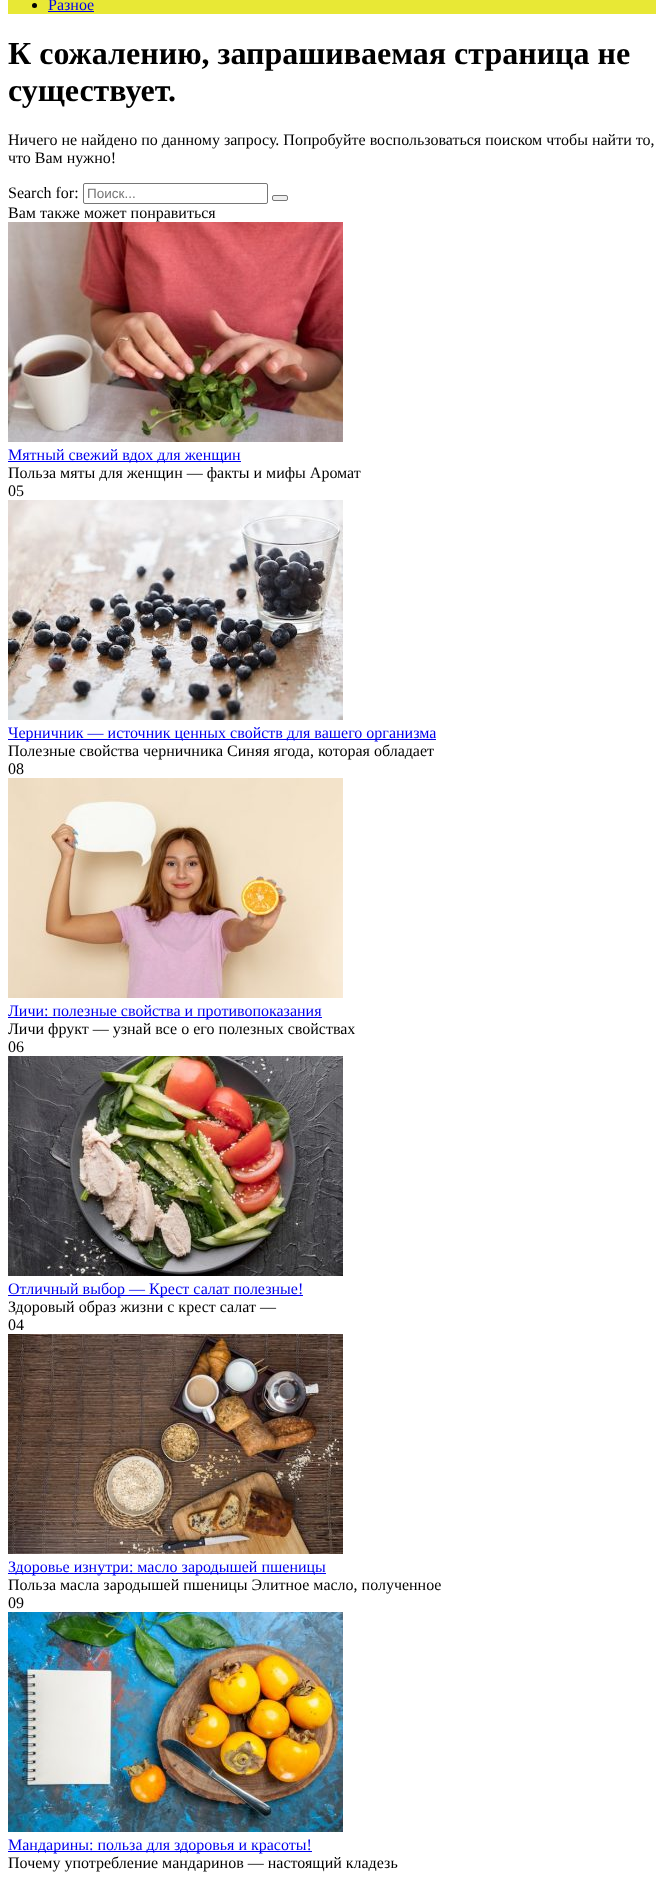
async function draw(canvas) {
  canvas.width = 664
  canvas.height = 1882
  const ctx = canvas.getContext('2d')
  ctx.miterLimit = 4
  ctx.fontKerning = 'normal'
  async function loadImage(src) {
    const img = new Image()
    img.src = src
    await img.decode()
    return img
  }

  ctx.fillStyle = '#fff'
  ctx.fillRect(0, 0, 664, 1882)
  ctx.fillStyle = '#e8e835'
  ctx.fillRect(8, 0, 648, 14)
  ctx.fillStyle = '#000'
  ctx.beginPath()
  ctx.arc(34.5, 5.5, 2.5, 0, 2 * Math.PI)
  ctx.fill()
  ctx.font = '16px Liberation Serif'
  ctx.fillStyle = '#00e'
  ctx.fillText('Разное', 48, 10)
  ctx.fillRect(48, 11, 46, 1)
  ctx.font = 'bold 32px Liberation Serif'
  ctx.fillStyle = '#000'
  ctx.fillText('К сожалению, запрашиваемая страница не', 8, 64)
  ctx.fillText('существует.', 8, 101)
  ctx.font = '16px Liberation Serif'
  ctx.fillText('Ничего не найдено по данному запросу. Попробуйте воспользоваться поиском чтобы найти то,', 8, 145)
  ctx.fillText('что Вам нужно!', 8, 163)
  ctx.fillText('Search for:', 8, 198)
  ctx.beginPath()
  ctx.roundRect(83.5, 183.5, 184, 20, 1.5)
  ctx.strokeStyle = '#767676'
  ctx.stroke()
  ctx.font = '13.5px Liberation Sans'
  ctx.fillStyle = '#757575'
  ctx.fillText('Поиск...', 87, 198)
  ctx.fillStyle = '#efefef'
  ctx.beginPath()
  ctx.roundRect(272.5, 195.5, 15, 5, 1.5)
  ctx.fill()
  ctx.stroke()
  ctx.font = '16px Liberation Serif'
  ctx.fillStyle = '#000'
  ctx.fillText('Вам также может понравиться', 8, 218)
  ctx.drawImage(await loadImage('image0.png'), 8, 222, 335, 220)
  ctx.fillStyle = '#00e'
  ctx.fillRect(8, 461, 233, 1)
  ctx.fillText('Мятный свежий вдох для женщин', 8, 460)
  ctx.fillStyle = '#000'
  ctx.fillText('Польза мяты для женщин — факты и мифы Аромат', 8, 478)
  ctx.fillText('05', 8, 496)
  ctx.drawImage(await loadImage('image1.png'), 8, 500, 335, 220)
  ctx.fillStyle = '#00e'
  ctx.fillRect(8, 739, 428, 1)
  ctx.fillText('Черничник — источник ценных свойств для вашего организма', 8, 738)
  ctx.fillStyle = '#000'
  ctx.fillText('Полезные свойства черничника Синяя ягода, которая обладает', 8, 756)
  ctx.fillText('08', 8, 774)
  ctx.drawImage(await loadImage('image2.png'), 8, 778, 335, 220)
  ctx.fillStyle = '#00e'
  ctx.fillRect(8, 1017, 314, 1)
  ctx.fillText('Личи: полезные свойства и противопоказания', 8, 1016)
  ctx.fillStyle = '#000'
  ctx.fillText('Личи фрукт — узнай все о его полезных свойствах', 8, 1034)
  ctx.fillText('06', 8, 1052)
  ctx.drawImage(await loadImage('image3.png'), 8, 1056, 335, 220)
  ctx.fillStyle = '#00e'
  ctx.fillRect(8, 1295, 295, 1)
  ctx.fillText('Отличный выбор — Крест салат полезные!', 8, 1294)
  ctx.fillStyle = '#000'
  ctx.fillText('Здоровый образ жизни с крест салат —', 8, 1312)
  ctx.fillText('04', 8, 1330)
  ctx.drawImage(await loadImage('image4.png'), 8, 1334, 335, 220)
  ctx.fillStyle = '#00e'
  ctx.fillRect(8, 1573, 318, 1)
  ctx.fillText('Здоровье изнутри: масло зародышей пшеницы', 8, 1572)
  ctx.fillStyle = '#000'
  ctx.fillText('Польза масла зародышей пшеницы Элитное масло, полученное', 8, 1590)
  ctx.fillText('09', 8, 1608)
  ctx.drawImage(await loadImage('image5.png'), 8, 1612, 335, 220)
  ctx.fillStyle = '#00e'
  ctx.fillRect(8, 1851, 304, 1)
  ctx.fillText('Мандарины: польза для здоровья и красоты!', 8, 1850)
  ctx.fillStyle = '#000'
  ctx.fillText('Почему употребление мандаринов — настоящий кладезь', 8, 1868)
}

draw(document.querySelector('canvas'))
